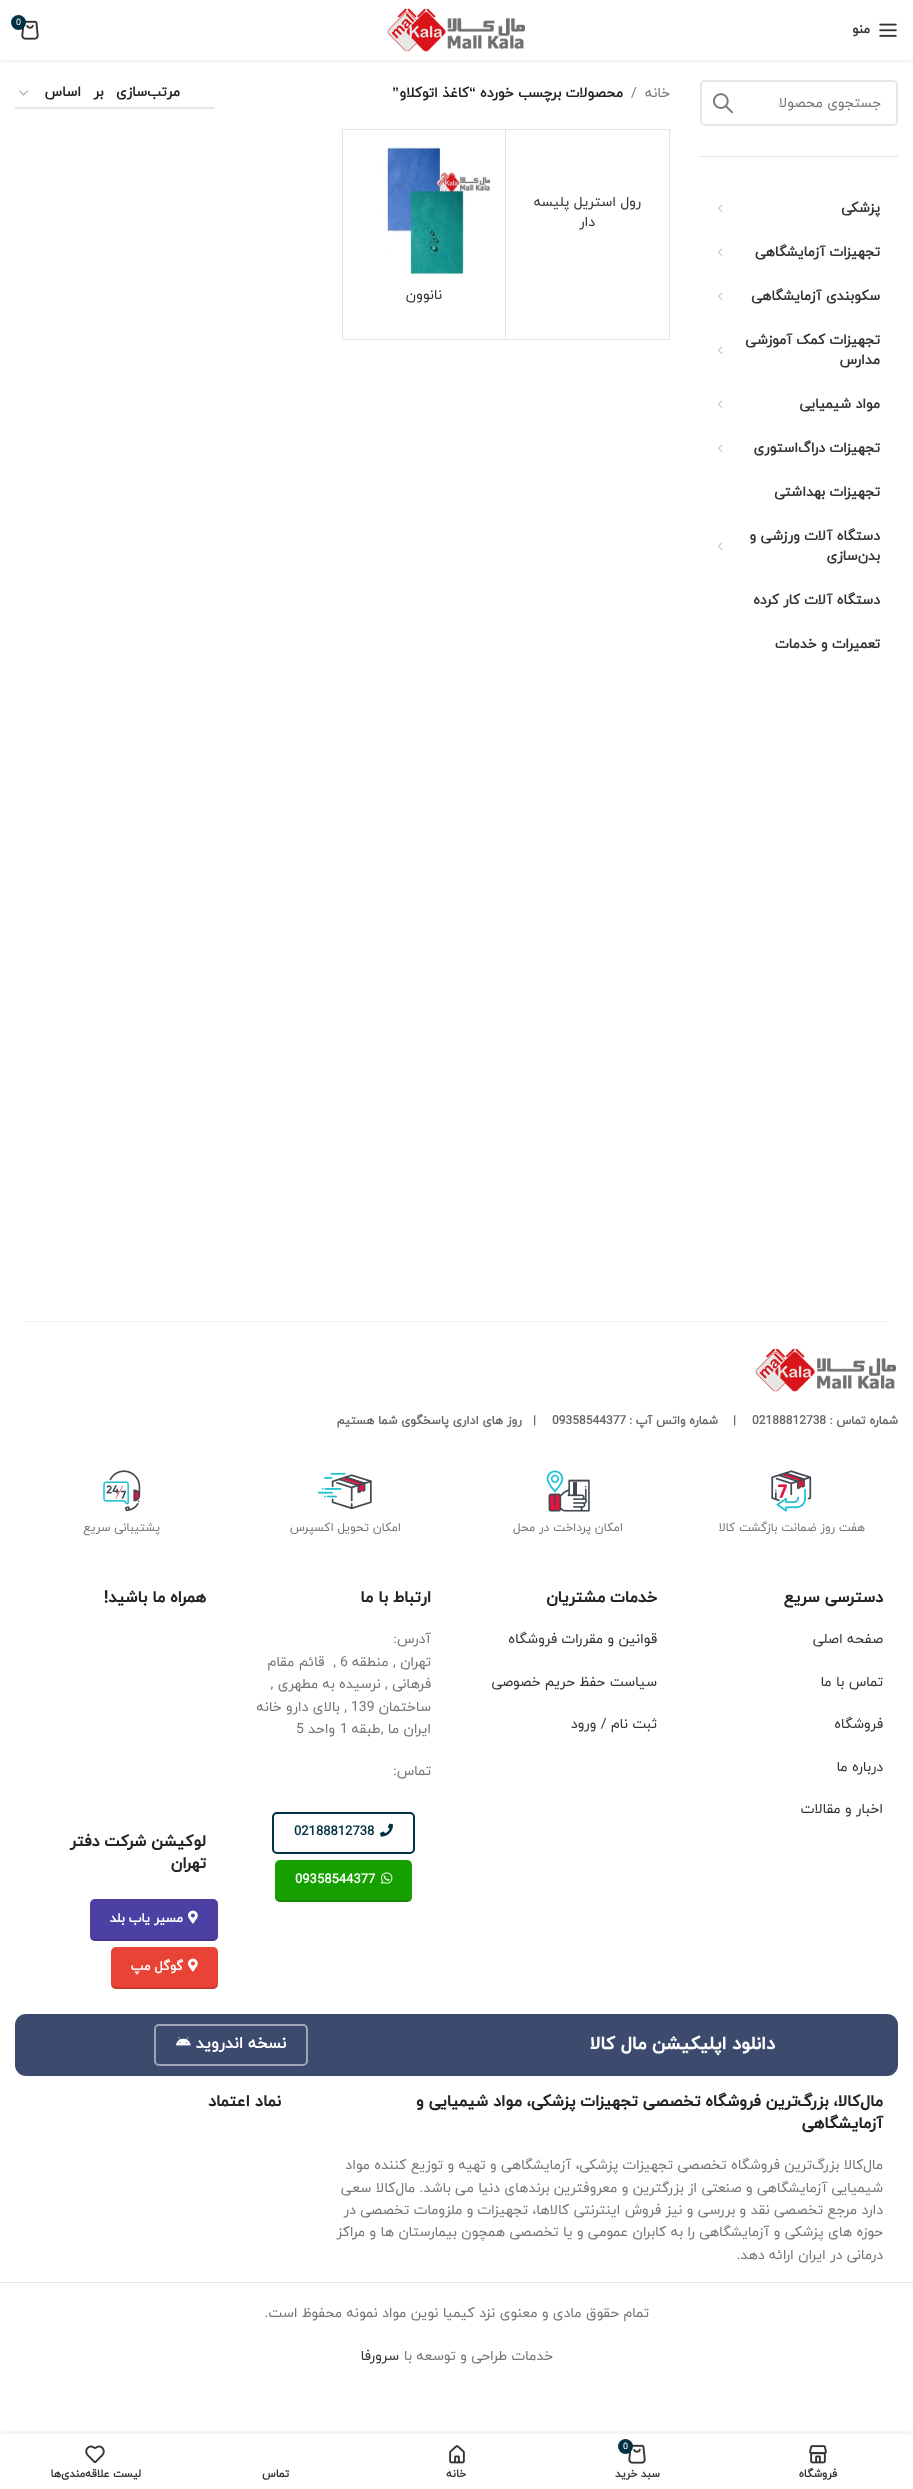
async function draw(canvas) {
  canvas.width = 913
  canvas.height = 2489
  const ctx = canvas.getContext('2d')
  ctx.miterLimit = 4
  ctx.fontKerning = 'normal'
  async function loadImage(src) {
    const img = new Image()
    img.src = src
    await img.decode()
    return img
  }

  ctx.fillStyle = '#fff'
  ctx.fillRect(0, 0, 913, 2489)
  ctx.save()
  ctx.beginPath()
  ctx.rect(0, 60, 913, 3)
  ctx.clip()
  ctx.fillStyle = '#5f5f5f1a'
  ctx.filter = 'blur(1.5px)'
  ctx.beginPath()
  ctx.rect(0, 2, 913, 60)
  ctx.fill()
  ctx.filter = 'none'
  ctx.restore()
  ctx.drawImage(await loadImage('image0.png'), 387, 8, 138, 44)
  ctx.drawImage(await loadImage('image1.png'), 21, 20, 18, 20)
  ctx.fillStyle = '#003244'
  ctx.beginPath()
  ctx.arc(18.5, 22.5, 7.5, 0, 2 * Math.PI)
  ctx.fill()
  ctx.font = '9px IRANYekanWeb'
  ctx.fillStyle = '#fff'
  ctx.fillText('0', 16, 25)
  ctx.drawImage(await loadImage('image2.png'), 879, 23, 18, 14)
  ctx.direction = 'rtl'
  ctx.font = 'bold 13px IRANYekanWeb'
  ctx.fillStyle = '#333'
  ctx.fillText('منو', 870, 33)
  ctx.fillStyle = '#e4e4e4'
  ctx.fillRect(700, 156, 198, 1)
  ctx.beginPath()
  ctx.roundRect(701, 81, 196, 44, 4)
  ctx.strokeStyle = '#e6e6e6'
  ctx.lineWidth = 2
  ctx.stroke()
  ctx.save()
  ctx.beginPath()
  ctx.rect(778, 94, 103, 19)
  ctx.clip()
  ctx.font = '14px IRANYekanWeb'
  ctx.fillStyle = '#767676'
  ctx.fillText('جستجوی محصولات', 881, 107)
  ctx.restore()
  ctx.drawImage(await loadImage('image3.png'), 713, 93, 20, 21)
  ctx.font = 'bold 14px IRANYekanWeb'
  ctx.fillStyle = '#333'
  ctx.fillText('پزشکی', 880, 212)
  ctx.drawImage(await loadImage('image4.png'), 718, 204, 5, 8)
  ctx.fillText('تجهیزات آزمایشگاهی', 880, 256)
  ctx.drawImage(await loadImage('image4.png'), 718, 248, 5, 8)
  ctx.fillText('سکوبندی آزمایشگاهی', 880, 300)
  ctx.drawImage(await loadImage('image4.png'), 718, 292, 5, 8)
  ctx.fillText('تجهیزات کمک آموزشی', 880, 344)
  ctx.fillText('مدارس', 880, 364)
  ctx.drawImage(await loadImage('image4.png'), 718, 346, 5, 8)
  ctx.fillText('مواد شیمیایی', 880, 408)
  ctx.drawImage(await loadImage('image4.png'), 718, 400, 5, 8)
  ctx.fillText('تجهیزات دراگ‌استوری', 880, 452)
  ctx.drawImage(await loadImage('image4.png'), 718, 444, 5, 8)
  ctx.fillText('تجهیزات بهداشتی', 880, 496)
  ctx.fillText('دستگاه آلات ورزشی و', 880, 540)
  ctx.fillText('بدن‌سازی', 880, 560)
  ctx.drawImage(await loadImage('image4.png'), 718, 542, 5, 8)
  ctx.fillText('دستگاه آلات کار کرده', 880, 604)
  ctx.fillText('تعمیرات و خدمات', 880, 648)
  ctx.font = '14px IRANYekanWeb'
  ctx.fillStyle = '#767676'
  ctx.fillText('خانه', 670, 97)
  ctx.direction = 'ltr'
  ctx.fillText('/', 631, 97)
  ctx.direction = 'rtl'
  ctx.font = 'bold 14px IRANYekanWeb'
  ctx.fillStyle = '#242424'
  ctx.fillText('محصولات برچسب خورده', 623, 97)
  ctx.font = 'bold 14px Liberation Sans'
  ctx.fillText('“', 476, 97)
  ctx.font = 'bold 14px IRANYekanWeb'
  ctx.fillText('کاغذ اتوکلاو', 469, 97)
  ctx.font = 'bold 14px Liberation Sans'
  ctx.fillText('”', 399, 97)
  ctx.beginPath()
  ctx.moveTo(19.5, 90.5)
  ctx.lineTo(23.5, 95)
  ctx.lineTo(28, 90.5)
  ctx.strokeStyle = '#bbb'
  ctx.lineWidth = 1.4
  ctx.stroke()
  ctx.fillStyle = '#e6e6e6'
  ctx.fillRect(15, 107, 200, 2)
  ctx.wordSpacing = '8px'
  ctx.font = 'bold 14px IRANYekanWeb'
  ctx.fillStyle = '#242424'
  ctx.fillText('مرتب‌سازی بر اساس', 180, 96)
  ctx.fillStyle = '#e4e4e4'
  ctx.fillRect(669, 129, 1, 211)
  ctx.beginPath()
  ctx.moveTo(505, 129)
  ctx.lineTo(669, 129)
  ctx.lineTo(669, 130)
  ctx.lineTo(506, 130)
  ctx.closePath()
  ctx.fill()
  ctx.beginPath()
  ctx.moveTo(669, 340)
  ctx.lineTo(505, 340)
  ctx.lineTo(506, 339)
  ctx.lineTo(669, 339)
  ctx.closePath()
  ctx.fill()
  ctx.fillStyle = '#0000001c'
  ctx.beginPath()
  ctx.moveTo(505, 340)
  ctx.lineTo(505, 129)
  ctx.lineTo(506, 130)
  ctx.lineTo(506, 339)
  ctx.closePath()
  ctx.fill()
  ctx.wordSpacing = '0px'
  ctx.font = '14px IRANYekanWeb'
  ctx.fillStyle = '#333'
  ctx.fillText('رول استریل پلیسه', 641, 206)
  ctx.fillText('دار', 595, 226)
  ctx.fillStyle = '#e4e4e4'
  ctx.beginPath()
  ctx.moveTo(342, 129)
  ctx.lineTo(505, 129)
  ctx.lineTo(505, 130)
  ctx.lineTo(343, 130)
  ctx.closePath()
  ctx.fill()
  ctx.beginPath()
  ctx.moveTo(505, 340)
  ctx.lineTo(342, 340)
  ctx.lineTo(343, 339)
  ctx.lineTo(505, 339)
  ctx.closePath()
  ctx.fill()
  ctx.fillStyle = '#0000001c'
  ctx.beginPath()
  ctx.moveTo(342, 340)
  ctx.lineTo(342, 129)
  ctx.lineTo(343, 130)
  ctx.lineTo(343, 339)
  ctx.closePath()
  ctx.fill()
  ctx.drawImage(await loadImage('image5.png'), 378, 147, 112, 129)
  ctx.fillStyle = '#333'
  ctx.fillText('نانوون', 442, 299)
  ctx.fillStyle = '#f1f1f1'
  ctx.fillRect(25, 1321, 863, 1)
  ctx.drawImage(await loadImage('image6.png'), 755, 1348, 141, 44)
  ctx.font = 'bold 12px IRANYekanWeb'
  ctx.fillStyle = '#686868'
  ctx.fillText('شماره تماس :', 898, 1424)
  ctx.direction = 'ltr'
  ctx.fillText('02188812738', 752, 1424)
  ctx.direction = 'rtl'
  ctx.fillText('|    شماره واتس آپ :', 736, 1424)
  ctx.direction = 'ltr'
  ctx.fillText('09358544377', 552, 1424)
  ctx.direction = 'rtl'
  ctx.fillText('|   روز های اداری پاسخگوی شما هستیم', 536, 1424)
  ctx.drawImage(await loadImage('image7.png'), 771, 1470, 41, 42)
  ctx.font = '12px IRANYekanWeb'
  ctx.fillStyle = '#767676'
  ctx.fillText('هفت روز ضمانت بازگشت کالا', 865, 1531)
  ctx.drawImage(await loadImage('image8.png'), 546, 1470, 44, 42)
  ctx.fillText('امکان پرداخت در محل', 623, 1531)
  ctx.drawImage(await loadImage('image9.png'), 317, 1472, 55, 38)
  ctx.fillText('اﻣﮑﺎن ﺗﺤﻮﯾﻞ اﮐﺴﭙﺮس', 401, 1531)
  ctx.drawImage(await loadImage('image10.png'), 103, 1470, 38, 42)
  ctx.fillText('پشتیبانی سریع', 160, 1531)
  ctx.font = 'bold 16px "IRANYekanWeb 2"'
  ctx.fillStyle = '#242424'
  ctx.fillText('دسترسی سریع', 883, 1602)
  ctx.font = '14px IRANYekanWeb'
  ctx.fillStyle = '#333'
  ctx.fillText('صفحه اصلی', 883, 1643)
  ctx.fillText('تماس با ما', 883, 1686)
  ctx.fillText('فروشگاه', 883, 1728)
  ctx.fillText('درباره ما', 883, 1771)
  ctx.fillText('اخبار و مقالات', 883, 1813)
  ctx.font = 'bold 16px "IRANYekanWeb 2"'
  ctx.fillStyle = '#242424'
  ctx.fillText('خدمات مشتریان', 657, 1602)
  ctx.font = '14px IRANYekanWeb'
  ctx.fillStyle = '#333'
  ctx.fillText('قوانین و مقررات فروشگاه', 657, 1643)
  ctx.fillText('سیاست حفظ حریم خصوصی', 657, 1686)
  ctx.fillText('ثبت نام / ورود', 657, 1728)
  ctx.font = 'bold 16px "IRANYekanWeb 2"'
  ctx.fillStyle = '#242424'
  ctx.fillText('ارتباط با ما', 431, 1602)
  ctx.font = '14px IRANYekanWeb'
  ctx.fillStyle = '#767676'
  ctx.fillText('آدرس:', 431, 1643)
  ctx.fillText('تهران , منطقه', 431, 1666)
  ctx.direction = 'ltr'
  ctx.fillText('6', 340, 1666)
  ctx.direction = 'rtl'
  ctx.fillText(',  قائم مقام', 336, 1666)
  ctx.fillText('فرهانی , نرسیده به مطهری ,', 431, 1688)
  ctx.fillText('ساختمان', 431, 1711)
  ctx.direction = 'ltr'
  ctx.fillText('139', 351, 1711)
  ctx.direction = 'rtl'
  ctx.fillText(', بالای دارو خانه', 347, 1711)
  ctx.fillText('ایران ما ,طبقه', 431, 1733)
  ctx.direction = 'ltr'
  ctx.fillText('1', 340, 1733)
  ctx.direction = 'rtl'
  ctx.fillText('واحد', 335, 1733)
  ctx.direction = 'ltr'
  ctx.fillText('5', 296, 1733)
  ctx.direction = 'rtl'
  ctx.fillText('تماس:', 431, 1775)
  ctx.beginPath()
  ctx.roundRect(273, 1813, 141, 40, 4)
  ctx.strokeStyle = '#003244'
  ctx.lineWidth = 2
  ctx.stroke()
  ctx.drawImage(await loadImage('image11.png'), 380, 1823, 13, 14)
  ctx.direction = 'ltr'
  ctx.font = 'bold 13px IRANYekanWeb'
  ctx.fillStyle = '#003244'
  ctx.fillText('02188812738', 294, 1835)
  ctx.fillStyle = '#16a000'
  ctx.beginPath()
  ctx.roundRect(275, 1860, 137, 42, 5)
  ctx.fill()
  ctx.fillStyle = '#00000026'
  ctx.beginPath()
  ctx.moveTo(275, 1895)
  ctx.lineTo(275, 1897)
  ctx.bezierCurveTo(275, 1900, 277, 1902, 280, 1902)
  ctx.lineTo(407, 1902)
  ctx.bezierCurveTo(410, 1902, 412, 1900, 412, 1897)
  ctx.lineTo(412, 1895)
  ctx.bezierCurveTo(412, 1898, 410, 1900, 407, 1900)
  ctx.lineTo(280, 1900)
  ctx.bezierCurveTo(277, 1900, 275, 1898, 275, 1895)
  ctx.closePath()
  ctx.fill()
  ctx.drawImage(await loadImage('image12.png'), 381, 1872, 12, 12)
  ctx.fillStyle = '#fff'
  ctx.fillText('09358544377', 295, 1883)
  ctx.direction = 'rtl'
  ctx.font = 'bold 16px "IRANYekanWeb 2"'
  ctx.fillStyle = '#242424'
  ctx.fillText('همراه ما باشید!', 206, 1602)
  ctx.fillText('لوکیشن شرکت دفتر', 206, 1846)
  ctx.fillText('تهران', 206, 1868)
  ctx.fillStyle = '#4d40a5'
  ctx.beginPath()
  ctx.roundRect(90, 1899, 128, 42, 5)
  ctx.fill()
  ctx.fillStyle = '#00000026'
  ctx.beginPath()
  ctx.moveTo(90, 1934)
  ctx.lineTo(90, 1936)
  ctx.bezierCurveTo(90, 1939, 92, 1941, 95, 1941)
  ctx.lineTo(213, 1941)
  ctx.bezierCurveTo(216, 1941, 218, 1939, 218, 1936)
  ctx.lineTo(218, 1934)
  ctx.bezierCurveTo(218, 1937, 216, 1939, 213, 1939)
  ctx.lineTo(95, 1939)
  ctx.bezierCurveTo(92, 1939, 90, 1937, 90, 1934)
  ctx.closePath()
  ctx.fill()
  ctx.drawImage(await loadImage('image13.png'), 188, 1910, 10, 14)
  ctx.font = 'bold 13px IRANYekanWeb'
  ctx.fillStyle = '#fff'
  ctx.fillText('مسیر یاب بلد', 183, 1922)
  ctx.fillStyle = '#e94335'
  ctx.beginPath()
  ctx.roundRect(111, 1947, 107, 42, 5)
  ctx.fill()
  ctx.fillStyle = '#00000026'
  ctx.beginPath()
  ctx.moveTo(111, 1982)
  ctx.lineTo(111, 1984)
  ctx.bezierCurveTo(111, 1987, 113, 1989, 116, 1989)
  ctx.lineTo(213, 1989)
  ctx.bezierCurveTo(216, 1989, 218, 1987, 218, 1984)
  ctx.lineTo(218, 1982)
  ctx.bezierCurveTo(218, 1985, 216, 1987, 213, 1987)
  ctx.lineTo(116, 1987)
  ctx.bezierCurveTo(113, 1987, 111, 1985, 111, 1982)
  ctx.closePath()
  ctx.fill()
  ctx.drawImage(await loadImage('image14.png'), 188, 1958, 10, 14)
  ctx.fillStyle = '#fff'
  ctx.fillText('گوگل مپ', 183, 1970)
  ctx.fillStyle = '#3c4b6d'
  ctx.beginPath()
  ctx.roundRect(15, 2014, 883, 62, 11)
  ctx.fill()
  ctx.font = 'bold 18px "IRANYekanWeb 2"'
  ctx.fillStyle = '#fff'
  ctx.fillText('دانلود اپلیکیشن مال کالا', 775, 2049)
  ctx.beginPath()
  ctx.roundRect(155, 2025, 152, 40, 4)
  ctx.strokeStyle = '#9ea5b6'
  ctx.stroke()
  ctx.font = 'bold 16px IRANYekanWeb'
  ctx.fillText('نسخه اندروید', 286, 2048)
  ctx.drawImage(await loadImage('image15.png'), 176, 2037, 15, 9)
  ctx.font = 'bold 16px "IRANYekanWeb 2"'
  ctx.fillStyle = '#242424'
  ctx.fillText('مال‌کالا، بزرگ‌ترین فروشگاه تخصصی تجهیزات پزشکی، مواد شیمیایی و', 883, 2106)
  ctx.fillText('آزمایشگاهی', 883, 2128)
  ctx.font = '14px IRANYekanWeb'
  ctx.fillStyle = '#767676'
  ctx.fillText('مال‌کالا بزرگ‌ترین فروشگاه تخصصی تجهیزات پزشکی، آزمایشگاهی و تهیه و توزیع کننده مواد', 883, 2169)
  ctx.fillText('شیمیایی آزمایشگاهی و صنعتی از بزرگترین و معروفترین برندهای دنیا می باشد. مال‌کالا سعی', 883, 2192)
  ctx.fillText('دارد مرجع تخصصی نقد و بررسی و نیز فروش اینترنتی کالاها، تجهیزات و ملزومات تخصصی در', 883, 2214)
  ctx.fillText('حوزه های پزشکی و آزمایشگاهی را به کابران عمومی و یا تخصصی همچون بیمارستان ها و مراکز', 883, 2236)
  ctx.fillText('درمانی در ایران ارائه دهد.', 883, 2259)
  ctx.font = 'bold 16px "IRANYekanWeb 2"'
  ctx.fillStyle = '#242424'
  ctx.fillText('نماد اعتماد', 281, 2106)
  ctx.fillStyle = '#e4e4e4'
  ctx.fillRect(0, 2282, 913, 1)
  ctx.font = '14px IRANYekanWeb'
  ctx.fillStyle = '#767676'
  ctx.fillText('تمام حقوق مادی و معنوی', 649, 2317)
  ctx.fillText('نزد کیمیا نوین مواد نمونه محفوظ است.', 495, 2317)
  ctx.fillText('خدمات طراحی و توسعه با', 553, 2360)
  ctx.fillStyle = '#333'
  ctx.fillText('سرورفا', 399, 2360)
  ctx.save()
  ctx.beginPath()
  ctx.rect(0, 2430, 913, 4)
  ctx.clip()
  ctx.fillStyle = '#0000001f'
  ctx.filter = 'blur(4.5px)'
  ctx.beginPath()
  ctx.rect(0, 2434, 913, 55)
  ctx.fill()
  ctx.filter = 'none'
  ctx.restore()
  ctx.drawImage(await loadImage('image16.png'), 809, 2445, 18, 19)
  ctx.font = 'bold 11px IRANYekanWeb'
  ctx.fillText('فروشگاه', 837, 2477)
  ctx.drawImage(await loadImage('image1.png'), 628, 2444, 18, 20)
  ctx.fillStyle = '#003244'
  ctx.beginPath()
  ctx.arc(625.5, 2446.5, 7.5, 0, 2 * Math.PI)
  ctx.fill()
  ctx.direction = 'ltr'
  ctx.font = '9px IRANYekanWeb'
  ctx.fillStyle = '#fff'
  ctx.fillText('0', 623, 2449)
  ctx.direction = 'rtl'
  ctx.font = 'bold 11px IRANYekanWeb'
  ctx.fillStyle = '#333'
  ctx.fillText('سبد خرید', 660, 2477)
  ctx.drawImage(await loadImage('image17.png'), 449, 2445, 16, 19)
  ctx.fillText('خانه', 466, 2477)
  ctx.fillText('تماس', 289, 2477)
  ctx.drawImage(await loadImage('image18.png'), 85, 2445, 20, 18)
  ctx.fillText('لیست علاقه‌مندی‌ها', 141, 2477)
}

draw(document.querySelector('canvas'))
